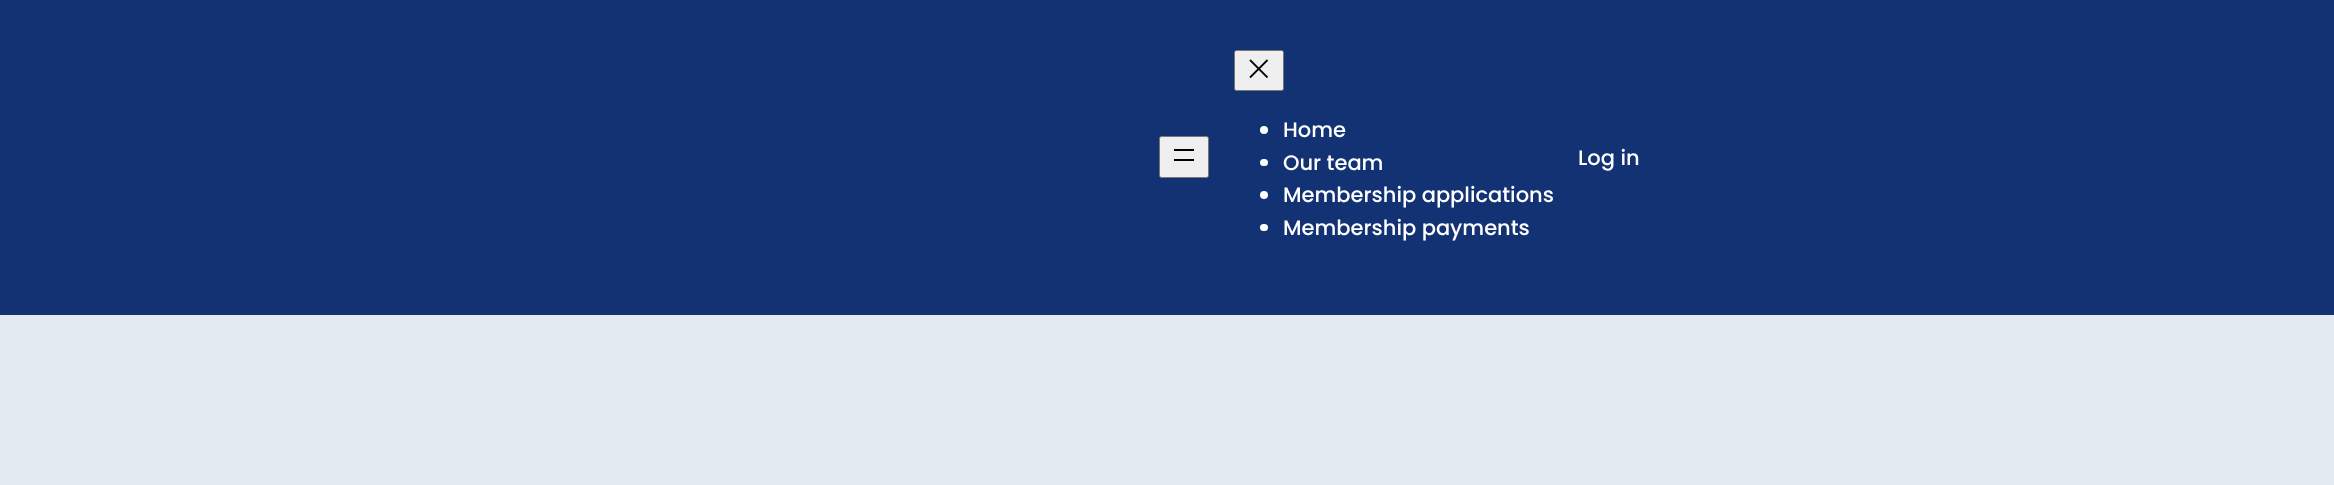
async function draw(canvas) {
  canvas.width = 2334
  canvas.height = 485
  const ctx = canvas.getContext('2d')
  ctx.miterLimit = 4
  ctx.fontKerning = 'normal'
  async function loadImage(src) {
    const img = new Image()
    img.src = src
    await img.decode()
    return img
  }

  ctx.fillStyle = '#e3ebf1'
  ctx.fillRect(0, 0, 2334, 485)
  ctx.fillStyle = '#123274'
  ctx.fillRect(0, 0, 2334, 315)
  ctx.fillStyle = '#efefef'
  ctx.beginPath()
  ctx.roundRect(1159.5, 136.5, 49, 41, 2)
  ctx.fill()
  ctx.strokeStyle = '#767676'
  ctx.stroke()
  ctx.fillStyle = '#000'
  ctx.fillRect(1174, 149, 20, 2)
  ctx.fillRect(1174, 159, 20, 2)
  ctx.fillStyle = '#efefef'
  ctx.beginPath()
  ctx.roundRect(1234.5, 50.5, 49, 40, 2)
  ctx.fill()
  ctx.stroke()
  ctx.drawImage(await loadImage('image0.png'), 1249, 59, 20, 20)
  ctx.fillStyle = '#fff'
  ctx.beginPath()
  ctx.arc(1264, 130, 4, 0, 2 * Math.PI)
  ctx.fill()
  ctx.font = '500 21px Poppins'
  ctx.fillText('Home', 1283, 137)
  ctx.beginPath()
  ctx.roundRect(1260, 159, 8, 7, 3.5)
  ctx.fill()
  ctx.fillText('Our team', 1283, 170)
  ctx.beginPath()
  ctx.arc(1264, 195, 4, 0, 2 * Math.PI)
  ctx.fill()
  ctx.fillText('Membership applications', 1283, 202)
  ctx.beginPath()
  ctx.roundRect(1260, 224, 8, 7, 3.5)
  ctx.fill()
  ctx.fillText('Membership payments', 1283, 235)
  ctx.fillText('Log in', 1578, 165)
}

draw(document.querySelector('canvas'))
